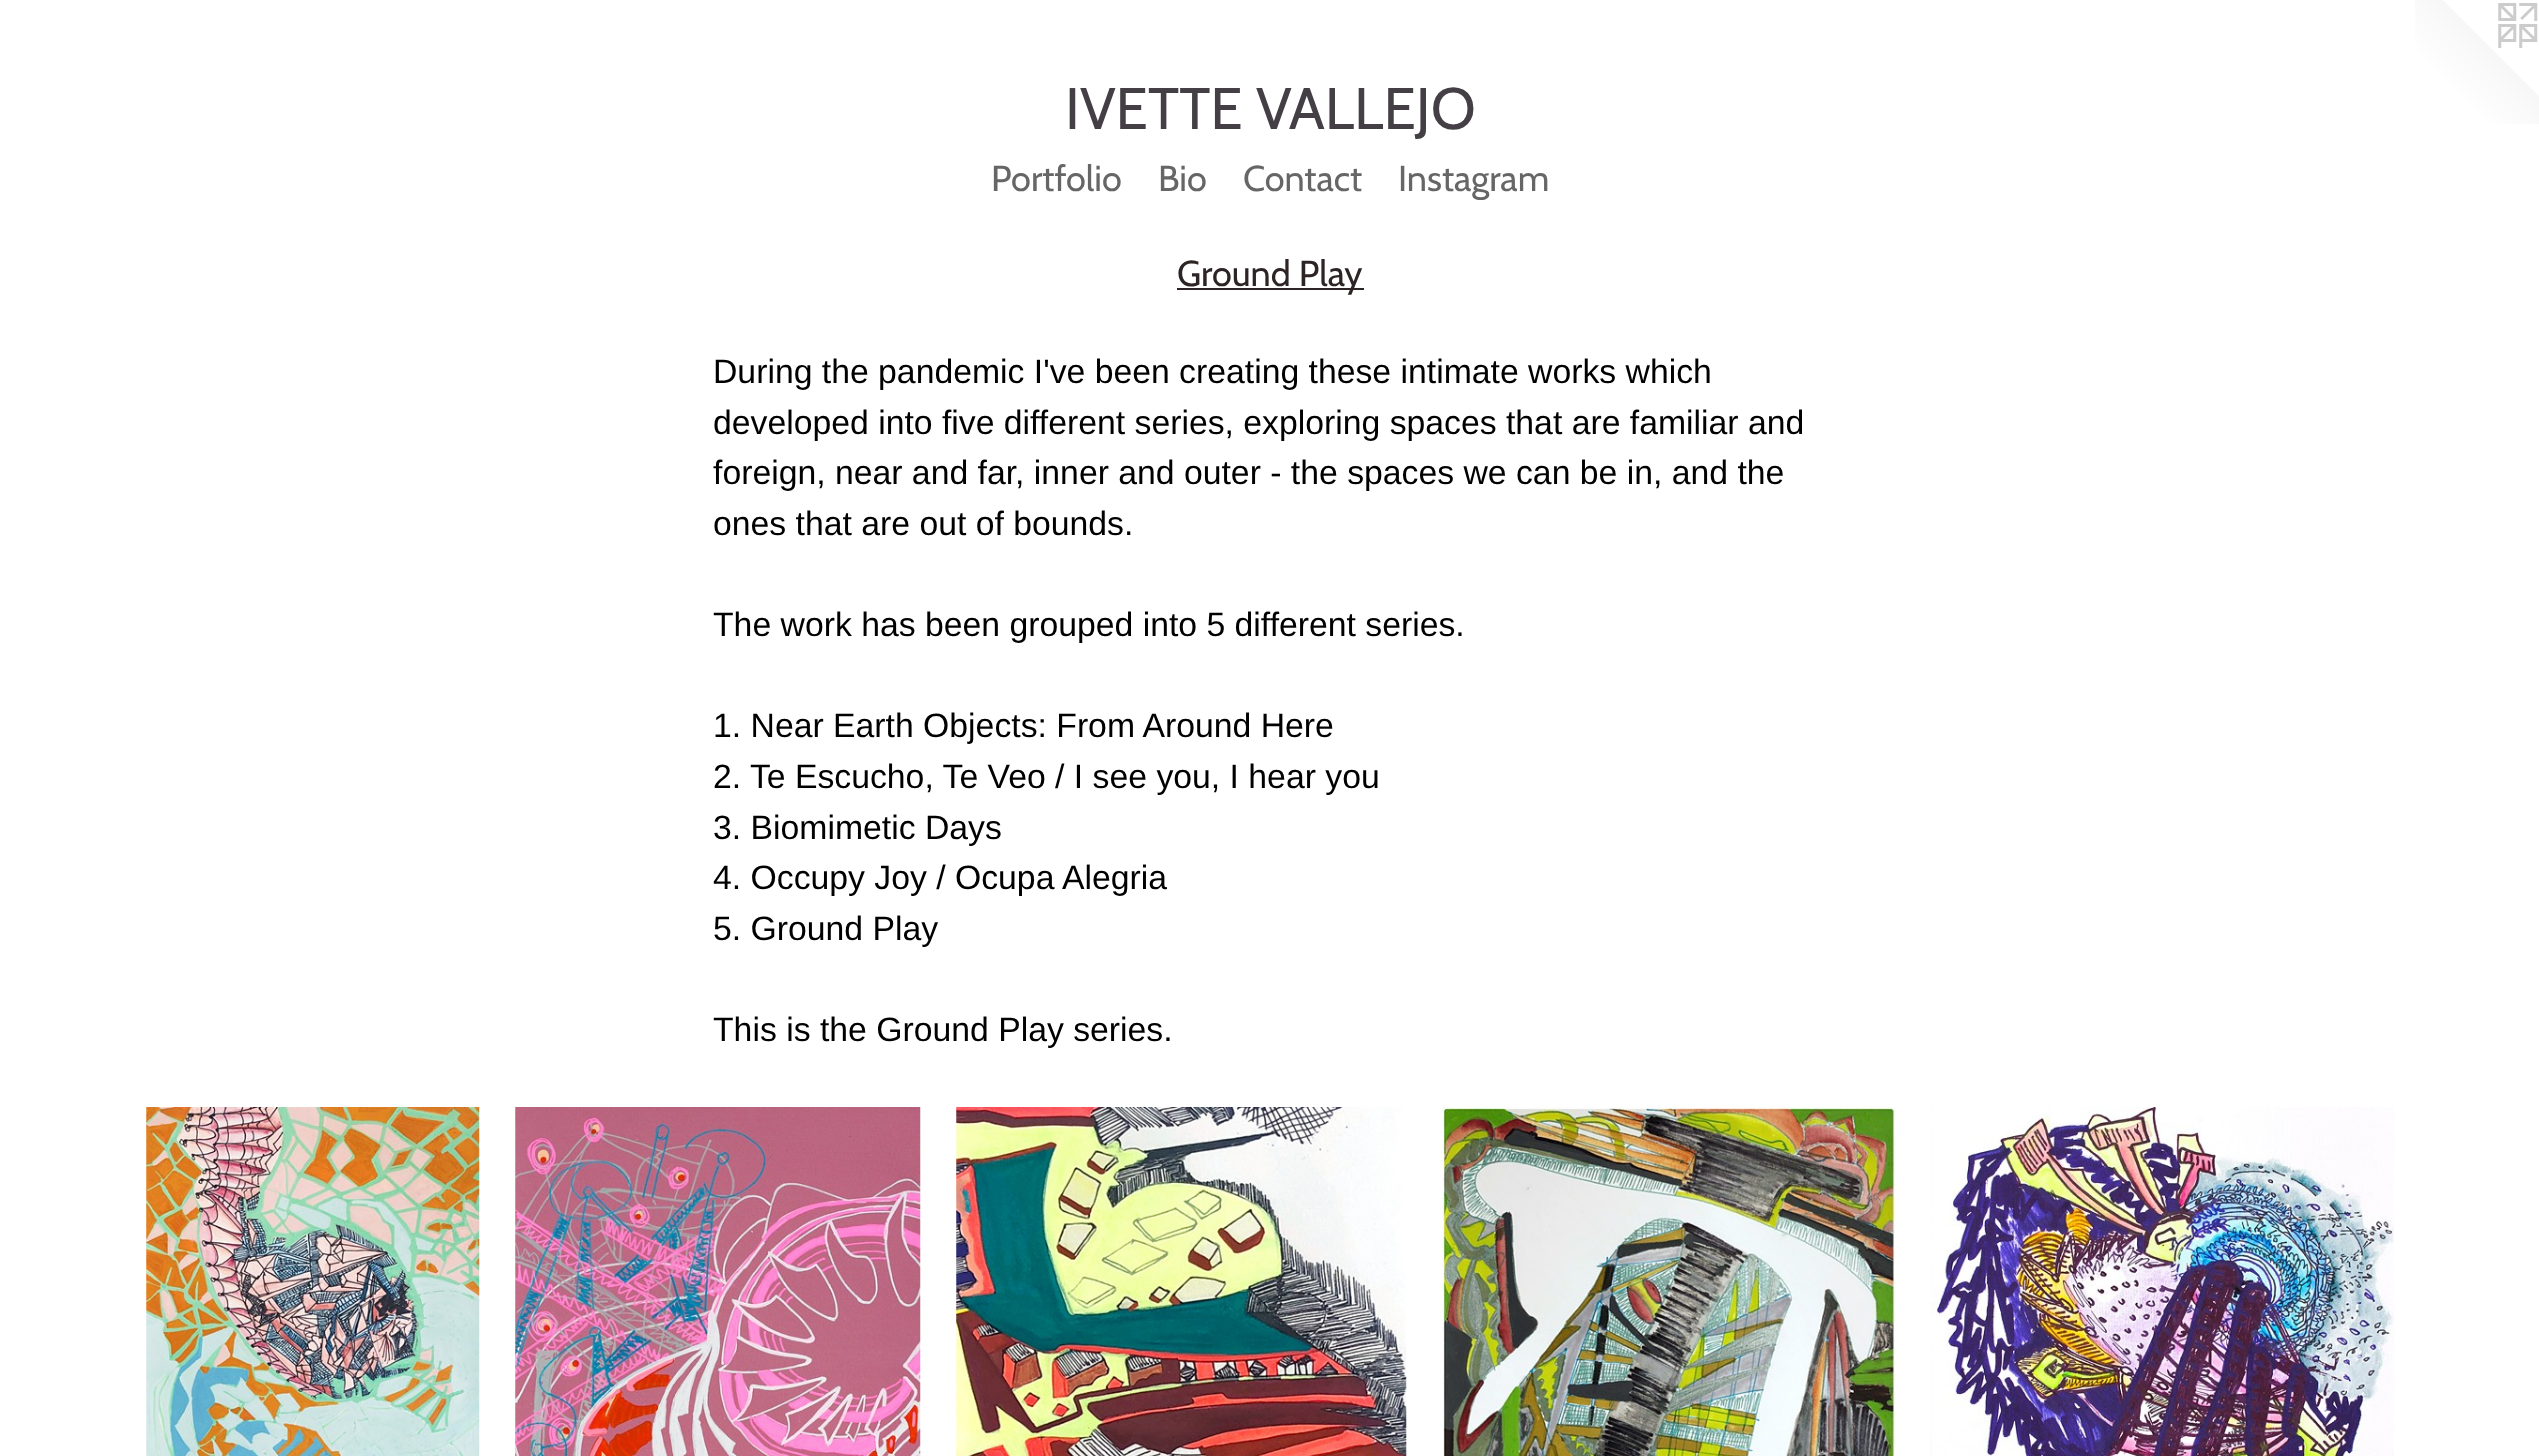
async function draw(canvas) {
  canvas.width = 2539
  canvas.height = 1456
  const ctx = canvas.getContext('2d')
  ctx.miterLimit = 4
  ctx.fontKerning = 'normal'
  async function loadImage(src) {
    const img = new Image()
    img.src = src
    await img.decode()
    return img
  }

  ctx.fillStyle = '#fff'
  ctx.fillRect(0, 0, 2539, 1456)
  ctx.font = '58.5px Cabin'
  ctx.fillStyle = '#443f45'
  ctx.fillText('IVETTE VALLEJO', 1065, 129)
  ctx.drawImage(await loadImage('image0.png'), 2415, 0, 124, 124)
  ctx.font = '36px Cabin'
  ctx.fillStyle = '#676666'
  ctx.fillText('Portfolio', 991, 191)
  ctx.fillText('Bio', 1158, 191)
  ctx.fillText('Contact', 1243, 191)
  ctx.fillText('Instagram', 1398, 191)
  ctx.fillStyle = '#2d2525'
  ctx.fillRect(1177, 288, 187, 2)
  ctx.fillText('Ground Play', 1177, 286)
  ctx.font = '33.75px Liberation Sans'
  ctx.fillStyle = '#000'
  ctx.fillText('During the pandemic I\'ve been creating these intimate works which', 713, 383)
  ctx.fillText('developed into five different series, exploring spaces that are familiar and', 713, 434)
  ctx.fillText('foreign, near and far, inner and outer - the spaces we can be in, and the', 713, 484)
  ctx.fillText('ones that are out of bounds.', 713, 535)
  ctx.fillText('The work has been grouped into 5 different series.', 713, 636)
  ctx.fillText('1. Near Earth Objects: From Around Here', 713, 737)
  ctx.fillText('2. Te Escucho, Te Veo / I see you, I hear you', 713, 788)
  ctx.fillText('3. Biomimetic Days', 713, 839)
  ctx.fillText('4. Occupy Joy / Ocupa Alegria', 713, 889)
  ctx.fillText('5. Ground Play', 713, 940)
  ctx.fillText('This is the Ground Play series.', 713, 1041)
  ctx.drawImage(await loadImage('image1.png'), 146, 1107, 334, 349)
  ctx.drawImage(await loadImage('image2.png'), 515, 1107, 406, 349)
  ctx.drawImage(await loadImage('image3.png'), 956, 1107, 451, 349)
  ctx.drawImage(await loadImage('image4.png'), 1442, 1107, 453, 349)
  ctx.drawImage(await loadImage('image5.png'), 1930, 1107, 464, 349)
}

draw(document.querySelector('canvas'))
